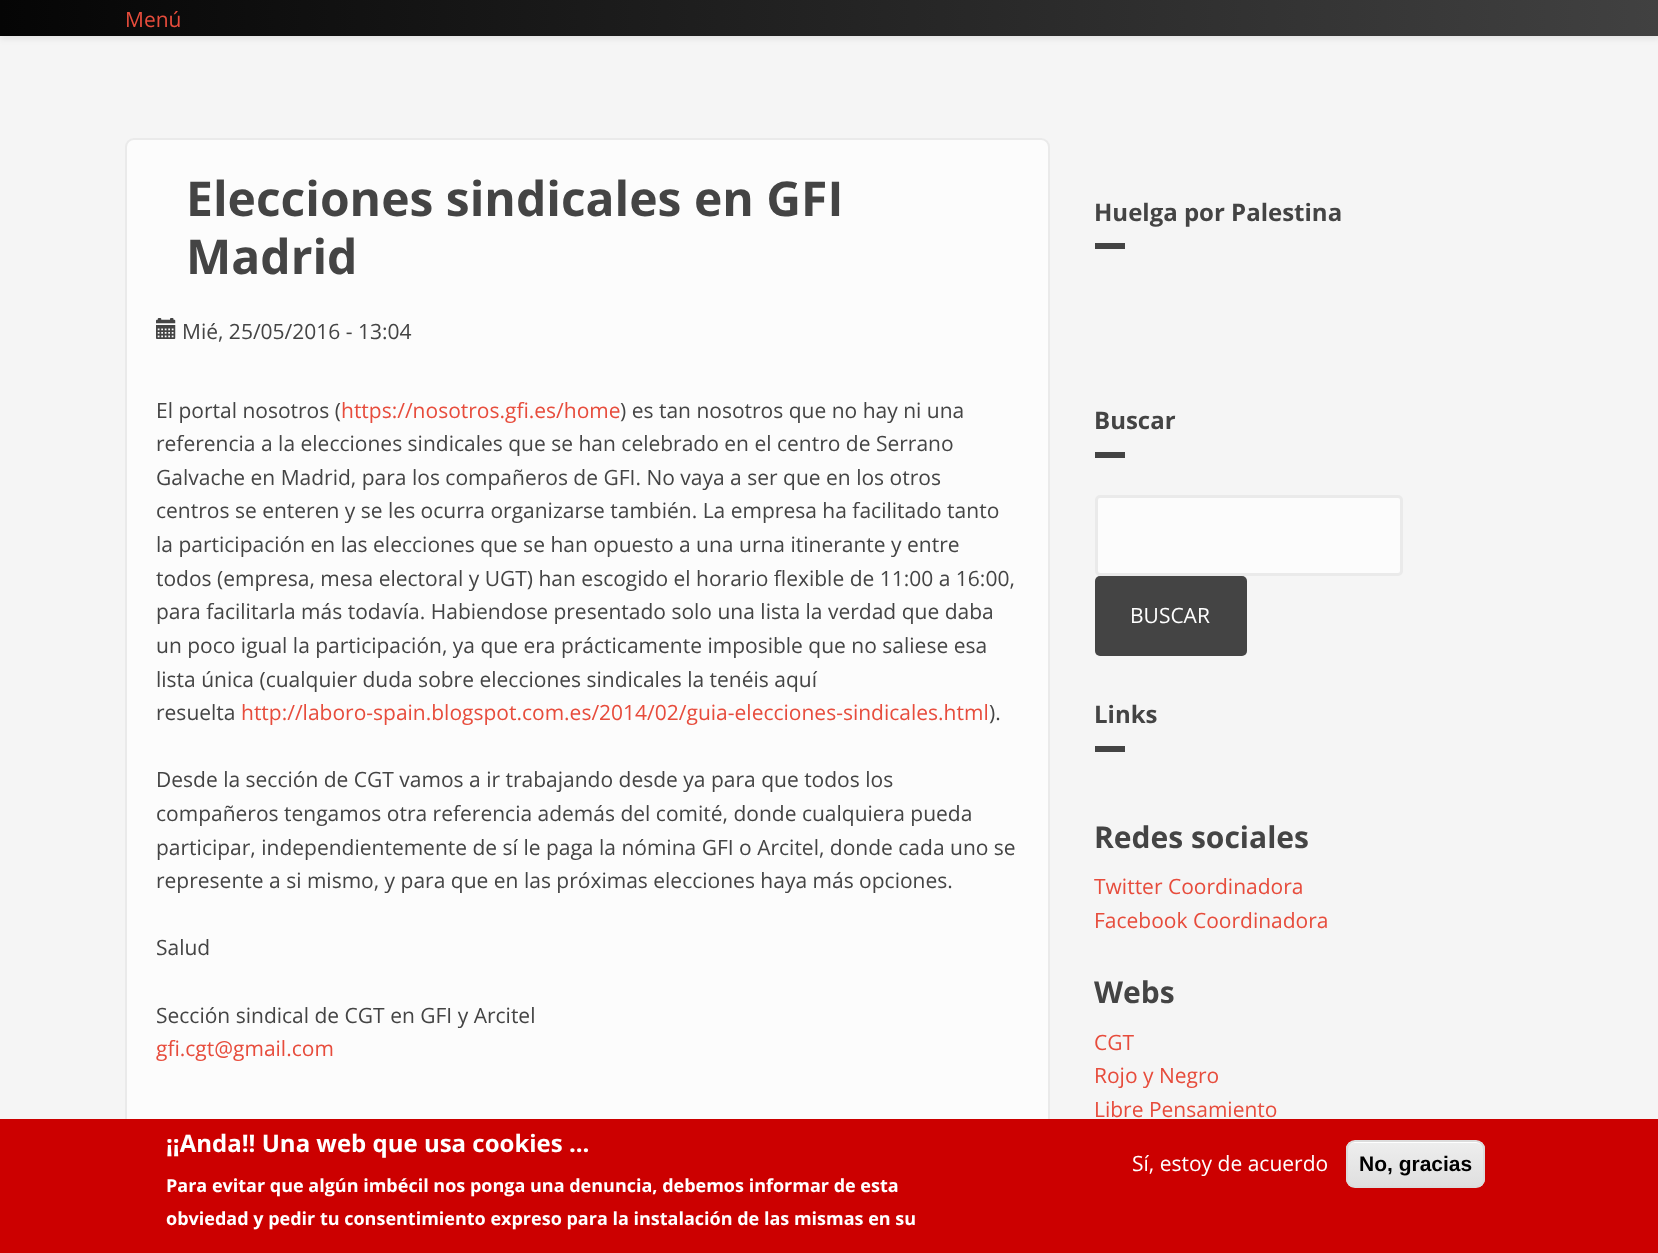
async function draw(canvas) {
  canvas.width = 1658
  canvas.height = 1253
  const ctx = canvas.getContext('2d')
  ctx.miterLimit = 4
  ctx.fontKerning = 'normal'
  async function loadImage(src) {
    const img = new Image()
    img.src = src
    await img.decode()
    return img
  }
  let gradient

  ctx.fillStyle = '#f5f5f5'
  ctx.fillRect(0, 0, 1658, 1253)
  ctx.fillStyle = '#05050512'
  ctx.filter = 'blur(3px)'
  ctx.beginPath()
  ctx.rect(0, 3, 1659, 36)
  ctx.fill()
  ctx.filter = 'none'
  gradient = ctx.createLinearGradient(0, 18, 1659, 18)
  gradient.addColorStop(0, '#050505')
  gradient.addColorStop(1, '#414141')
  ctx.fillStyle = gradient
  ctx.fillRect(0, 0, 1658, 36)
  ctx.font = '21px Open Sans'
  ctx.fillStyle = '#e74c3c'
  ctx.fillText('Menú', 125, 27)
  ctx.fillStyle = '#fcfcfc'
  ctx.beginPath()
  ctx.roundRect(126, 139, 923, 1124, 8)
  ctx.fill()
  ctx.strokeStyle = '#eaeaea'
  ctx.lineWidth = 2
  ctx.stroke()
  ctx.font = 'bold 48px Open Sans'
  ctx.fillStyle = '#444'
  ctx.fillText('Elecciones sindicales en GFI', 186, 216)
  ctx.fillText('Madrid', 186, 274)
  ctx.drawImage(await loadImage('image0.png'), 156, 318, 20, 21)
  ctx.font = '21px Open Sans'
  ctx.fillText('Mié, 25/05/2016 - 13:04', 182, 339)
  ctx.fillText('El portal nosotros (', 156, 418)
  ctx.fillStyle = '#e74c3c'
  ctx.fillText('https://nosotros.gfi.es/home', 341, 418)
  ctx.fillStyle = '#444'
  ctx.fillText(') es tan nosotros que no hay ni una', 620, 418)
  ctx.fillText('referencia a la elecciones sindicales que se han celebrado en el centro de Serrano', 156, 451)
  ctx.fillText('Galvache en Madrid, para los compañeros de GFI. No vaya a ser que en los otros', 156, 485)
  ctx.fillText('centros se enteren y se les ocurra organizarse también. La empresa ha facilitado tanto', 156, 518)
  ctx.fillText('la participación en las elecciones que se han opuesto a una urna itinerante y entre', 156, 552)
  ctx.fillText('todos (empresa, mesa electoral y UGT) han escogido el horario flexible de 11:00 a 16:00,', 156, 586)
  ctx.fillText('para facilitarla más todavía. Habiendose presentado solo una lista la verdad que daba', 156, 619)
  ctx.fillText('un poco igual la participación, ya que era prácticamente imposible que no saliese esa', 156, 653)
  ctx.fillText('lista única (cualquier duda sobre elecciones sindicales la tenéis aquí', 156, 687)
  ctx.fillText('resuelta', 156, 720)
  ctx.fillStyle = '#e74c3c'
  ctx.fillText('http://laboro-spain.blogspot.com.es/2014/02/guia-elecciones-sindicales.html', 241, 720)
  ctx.fillStyle = '#444'
  ctx.fillText(').', 989, 720)
  ctx.fillText('Desde la sección de CGT vamos a ir trabajando desde ya para que todos los', 156, 787)
  ctx.fillText('compañeros tengamos otra referencia además del comité, donde cualquiera pueda', 156, 821)
  ctx.fillText('participar, independientemente de sí le paga la nómina GFI o Arcitel, donde cada uno se', 156, 855)
  ctx.fillText('represente a si mismo, y para que en las próximas elecciones haya más opciones.', 156, 888)
  ctx.fillText('Salud', 156, 955)
  ctx.fillText('Sección sindical de CGT en GFI y Arcitel', 156, 1023)
  ctx.fillStyle = '#e74c3c'
  ctx.fillText('gfi.cgt@gmail.com', 156, 1056)
  ctx.font = 'bold 24px Open Sans'
  ctx.fillStyle = '#444'
  ctx.fillText('Huelga por Palestina', 1094, 221)
  ctx.fillRect(1095, 243, 30, 6)
  ctx.fillText('Buscar', 1094, 429)
  ctx.fillRect(1095, 452, 30, 6)
  ctx.fillStyle = '#fcfcfc'
  ctx.beginPath()
  ctx.roundRect(1096.5, 496.5, 305, 78, 3.5)
  ctx.fill()
  ctx.lineWidth = 3
  ctx.stroke()
  ctx.fillStyle = '#444'
  ctx.beginPath()
  ctx.roundRect(1095, 576, 152, 80, 5)
  ctx.fill()
  ctx.font = '21px Open Sans'
  ctx.fillStyle = '#fff'
  ctx.fillText('BUSCAR', 1130, 623)
  ctx.font = 'bold 24px Open Sans'
  ctx.fillStyle = '#444'
  ctx.fillText('Links', 1094, 723)
  ctx.fillRect(1095, 746, 30, 6)
  ctx.font = 'bold 30px Open Sans'
  ctx.fillText('Redes sociales', 1094, 848)
  ctx.font = '21px Open Sans'
  ctx.fillStyle = '#e74c3c'
  ctx.fillText('Twitter Coordinadora', 1094, 894)
  ctx.fillText('Facebook Coordinadora', 1094, 928)
  ctx.font = 'bold 30px Open Sans'
  ctx.fillStyle = '#444'
  ctx.fillText('Webs', 1094, 1003)
  ctx.font = '21px Open Sans'
  ctx.fillStyle = '#e74c3c'
  ctx.fillText('CGT', 1094, 1050)
  ctx.fillText('Rojo y Negro', 1094, 1083)
  ctx.fillText('Libre Pensamiento', 1094, 1117)
  ctx.fillStyle = '#c00'
  ctx.fillRect(0, 1119, 1658, 134)
  ctx.font = 'bold 24px Open Sans'
  ctx.fillStyle = '#fff'
  ctx.fillText('¡¡Anda!! Una web que usa cookies ...', 166, 1152)
  ctx.font = 'bold 18px Open Sans'
  ctx.fillText('Para evitar que algún imbécil nos ponga una denuncia, debemos informar de esta', 166, 1192)
  ctx.fillText('obviedad y pedir tu consentimiento expreso para la instalación de las mismas en su', 166, 1225)
  ctx.font = '21px Open Sans'
  ctx.fillText('Sí, estoy de acuerdo', 1132, 1171)
  ctx.save()
  ctx.beginPath()
  ctx.roundRect(1346, 1140, 139, 48, 9)
  ctx.clip()
  gradient = ctx.createLinearGradient(1415, 1142, 1415, 1187)
  gradient.addColorStop(0.05, '#ededed')
  gradient.addColorStop(1, '#dfdfdf')
  ctx.fillStyle = gradient
  ctx.fillRect(1346, 1142, 139, 45)
  ctx.restore()
  ctx.beginPath()
  ctx.moveTo(1354, 1143)
  ctx.lineTo(1476, 1143)
  ctx.bezierCurveTo(1480, 1143, 1484, 1146, 1484, 1150)
  ctx.bezierCurveTo(1484, 1146, 1480, 1142, 1476, 1142)
  ctx.lineTo(1355, 1142)
  ctx.bezierCurveTo(1351, 1142, 1347, 1146, 1347, 1150)
  ctx.bezierCurveTo(1347, 1146, 1350, 1143, 1354, 1143)
  ctx.closePath()
  ctx.fill()
  ctx.beginPath()
  ctx.roundRect(1347, 1141, 137, 46, 8)
  ctx.strokeStyle = '#dcdcdc'
  ctx.lineWidth = 2
  ctx.stroke()
  ctx.font = 'bold 21px Liberation Sans'
  ctx.fillStyle = '#000'
  ctx.fillText('No, gracias', 1359, 1171)
}

draw(document.querySelector('canvas'))
